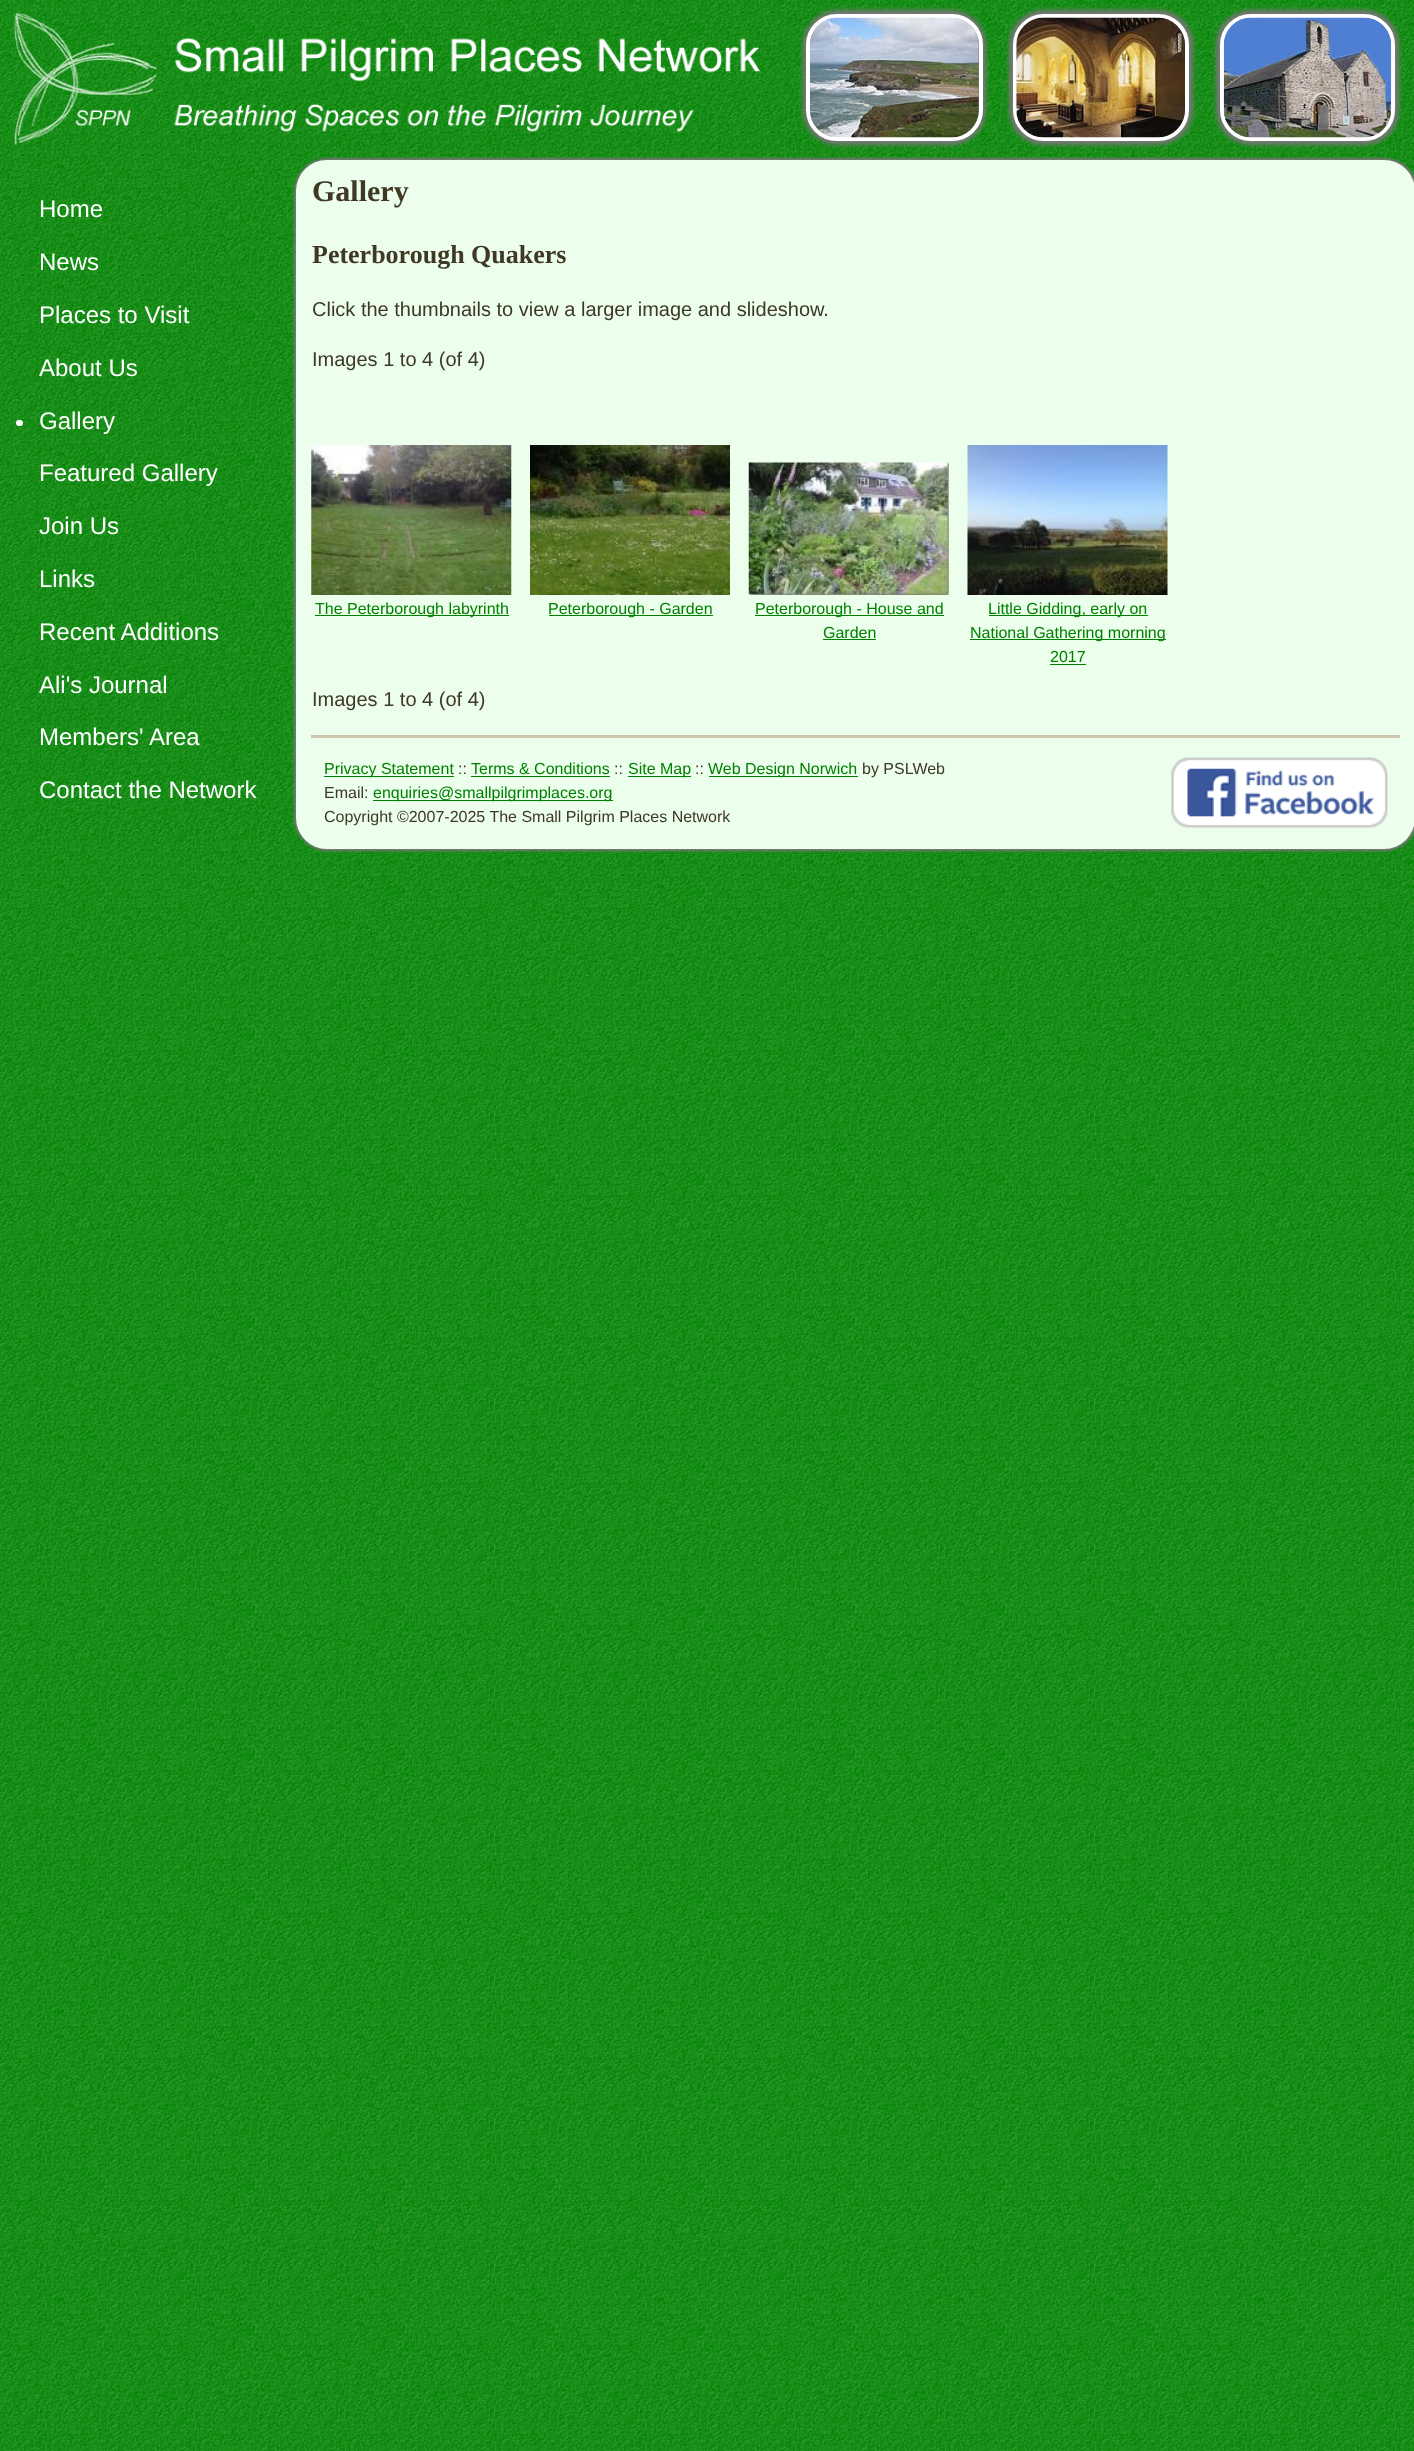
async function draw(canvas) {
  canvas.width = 1414
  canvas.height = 2451
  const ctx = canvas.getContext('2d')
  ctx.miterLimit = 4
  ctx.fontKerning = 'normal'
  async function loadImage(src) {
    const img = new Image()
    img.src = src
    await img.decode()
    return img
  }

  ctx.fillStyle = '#fff'
  ctx.fillRect(0, 0, 1414, 2451)
  ctx.drawImage(await loadImage('image0.png'), 0, 0, 1414, 2451)
  ctx.drawImage(await loadImage('image1.png'), 14, 13, 746, 132)
  ctx.fillStyle = '#777'
  ctx.filter = 'blur(2px)'
  ctx.beginPath()
  ctx.roundRect(803, 10, 183, 135, 35)
  ctx.fill()
  ctx.filter = 'none'
  ctx.filter = 'blur(2px)'
  ctx.beginPath()
  ctx.roundRect(1009, 10, 184, 135, 35)
  ctx.fill()
  ctx.filter = 'none'
  ctx.filter = 'blur(2px)'
  ctx.beginPath()
  ctx.roundRect(1216, 10, 183, 135, 35)
  ctx.fill()
  ctx.filter = 'none'
  ctx.beginPath()
  ctx.roundRect(808, 16, 173, 123, 29)
  ctx.strokeStyle = '#fff'
  ctx.lineWidth = 4
  ctx.stroke()
  ctx.beginPath()
  ctx.roundRect(1015, 16, 172, 123, 29)
  ctx.stroke()
  ctx.beginPath()
  ctx.roundRect(1222, 16, 171, 123, 29)
  ctx.stroke()
  ctx.drawImage(await loadImage('image2.png'), 810, 17, 169, 121)
  ctx.drawImage(await loadImage('image3.png'), 1016, 17, 169, 121)
  ctx.drawImage(await loadImage('image4.png'), 1223, 17, 169, 121)
  ctx.font = '24px Liberation Sans'
  ctx.fillStyle = '#fff'
  ctx.fillText('Home', 39, 217)
  ctx.fillText('News', 39, 270)
  ctx.fillText('Places to Visit', 39, 323)
  ctx.fillText('About Us', 39, 376)
  ctx.beginPath()
  ctx.roundRect(16, 420, 7, 6, 3)
  ctx.fill()
  ctx.fillText('Gallery', 39, 429)
  ctx.fillText('Featured Gallery', 39, 481)
  ctx.fillText('Join Us', 39, 534)
  ctx.fillText('Links', 39, 587)
  ctx.fillText('Recent Additions', 39, 640)
  ctx.fillText('Ali\'s Journal', 39, 693)
  ctx.fillText('Members\' Area', 39, 745)
  ctx.fillText('Contact the Network', 39, 798)
  ctx.fillStyle = '#777'
  ctx.filter = 'blur(1px)'
  ctx.beginPath()
  ctx.roundRect(294, 158, 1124, 693, 34)
  ctx.fill()
  ctx.filter = 'none'
  ctx.fillStyle = '#ecffec'
  ctx.beginPath()
  ctx.roundRect(296, 160, 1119, 689, 31)
  ctx.fill()
  ctx.font = 'bold 30px Liberation Serif'
  ctx.fillStyle = '#3f3825'
  ctx.fillText('Gallery', 312, 201)
  ctx.font = 'bold 26px Liberation Serif'
  ctx.fillText('Peterborough Quakers', 312, 263)
  ctx.font = '20px Liberation Sans'
  ctx.fillText('Click the thumbnails to view a larger image and slideshow.', 312, 316)
  ctx.fillText('Images 1 to 4 (of 4)', 312, 366)
  ctx.drawImage(await loadImage('image5.png'), 311, 445, 201, 150)
  ctx.fillStyle = '#008000'
  ctx.fillRect(315, 615, 194, 1)
  ctx.font = '16px Liberation Sans'
  ctx.fillText('The Peterborough labyrinth', 315, 614)
  ctx.drawImage(await loadImage('image6.png'), 530, 445, 200, 150)
  ctx.fillRect(549, 615, 164, 1)
  ctx.fillText('Peterborough - Garden', 548, 614)
  ctx.drawImage(await loadImage('image7.png'), 748, 462, 201, 133)
  ctx.fillRect(755, 615, 189, 1)
  ctx.fillText('Peterborough - House and', 755, 614)
  ctx.fillText('Garden', 823, 638)
  ctx.fillRect(823, 639, 53, 1)
  ctx.drawImage(await loadImage('image8.png'), 967, 445, 201, 150)
  ctx.fillRect(989, 615, 159, 1)
  ctx.fillText('Little Gidding, early on', 988, 614)
  ctx.fillRect(970, 639, 196, 1)
  ctx.fillText('National Gathering morning', 970, 638)
  ctx.fillText('2017', 1050, 662)
  ctx.fillRect(1050, 664, 36, 1)
  ctx.font = '20px Liberation Sans'
  ctx.fillStyle = '#3f3825'
  ctx.fillText('Images 1 to 4 (of 4)', 312, 706)
  ctx.fillStyle = '#cec6ae'
  ctx.fillRect(311, 735, 1089, 3)
  ctx.fillStyle = '#008000'
  ctx.fillRect(324, 776, 130, 1)
  ctx.font = '16px Liberation Sans'
  ctx.fillText('Privacy Statement', 324, 774)
  ctx.fillStyle = '#3f3825'
  ctx.fillText('::', 458, 774)
  ctx.fillStyle = '#008000'
  ctx.fillText('Terms & Conditions', 471, 774)
  ctx.fillRect(471, 776, 139, 1)
  ctx.fillStyle = '#3f3825'
  ctx.fillText('::', 614, 774)
  ctx.fillStyle = '#008000'
  ctx.fillRect(628, 776, 63, 1)
  ctx.fillText('Site Map', 628, 774)
  ctx.fillStyle = '#3f3825'
  ctx.fillText('::', 695, 774)
  ctx.fillStyle = '#008000'
  ctx.fillRect(709, 776, 149, 1)
  ctx.fillText('Web Design Norwich', 708, 774)
  ctx.fillStyle = '#3f3825'
  ctx.fillText('by PSLWeb', 862, 774)
  ctx.fillText('Email:', 324, 798)
  ctx.fillStyle = '#008000'
  ctx.fillRect(373, 800, 240, 1)
  ctx.fillText('enquiries@smallpilgrimplaces.org', 373, 798)
  ctx.fillStyle = '#3f3825'
  ctx.fillText('Copyright ©2007-2025 The Small Pilgrim Places Network', 324, 822)
  ctx.drawImage(await loadImage('image9.png'), 1171, 757, 217, 71)
}

draw(document.querySelector('canvas'))
